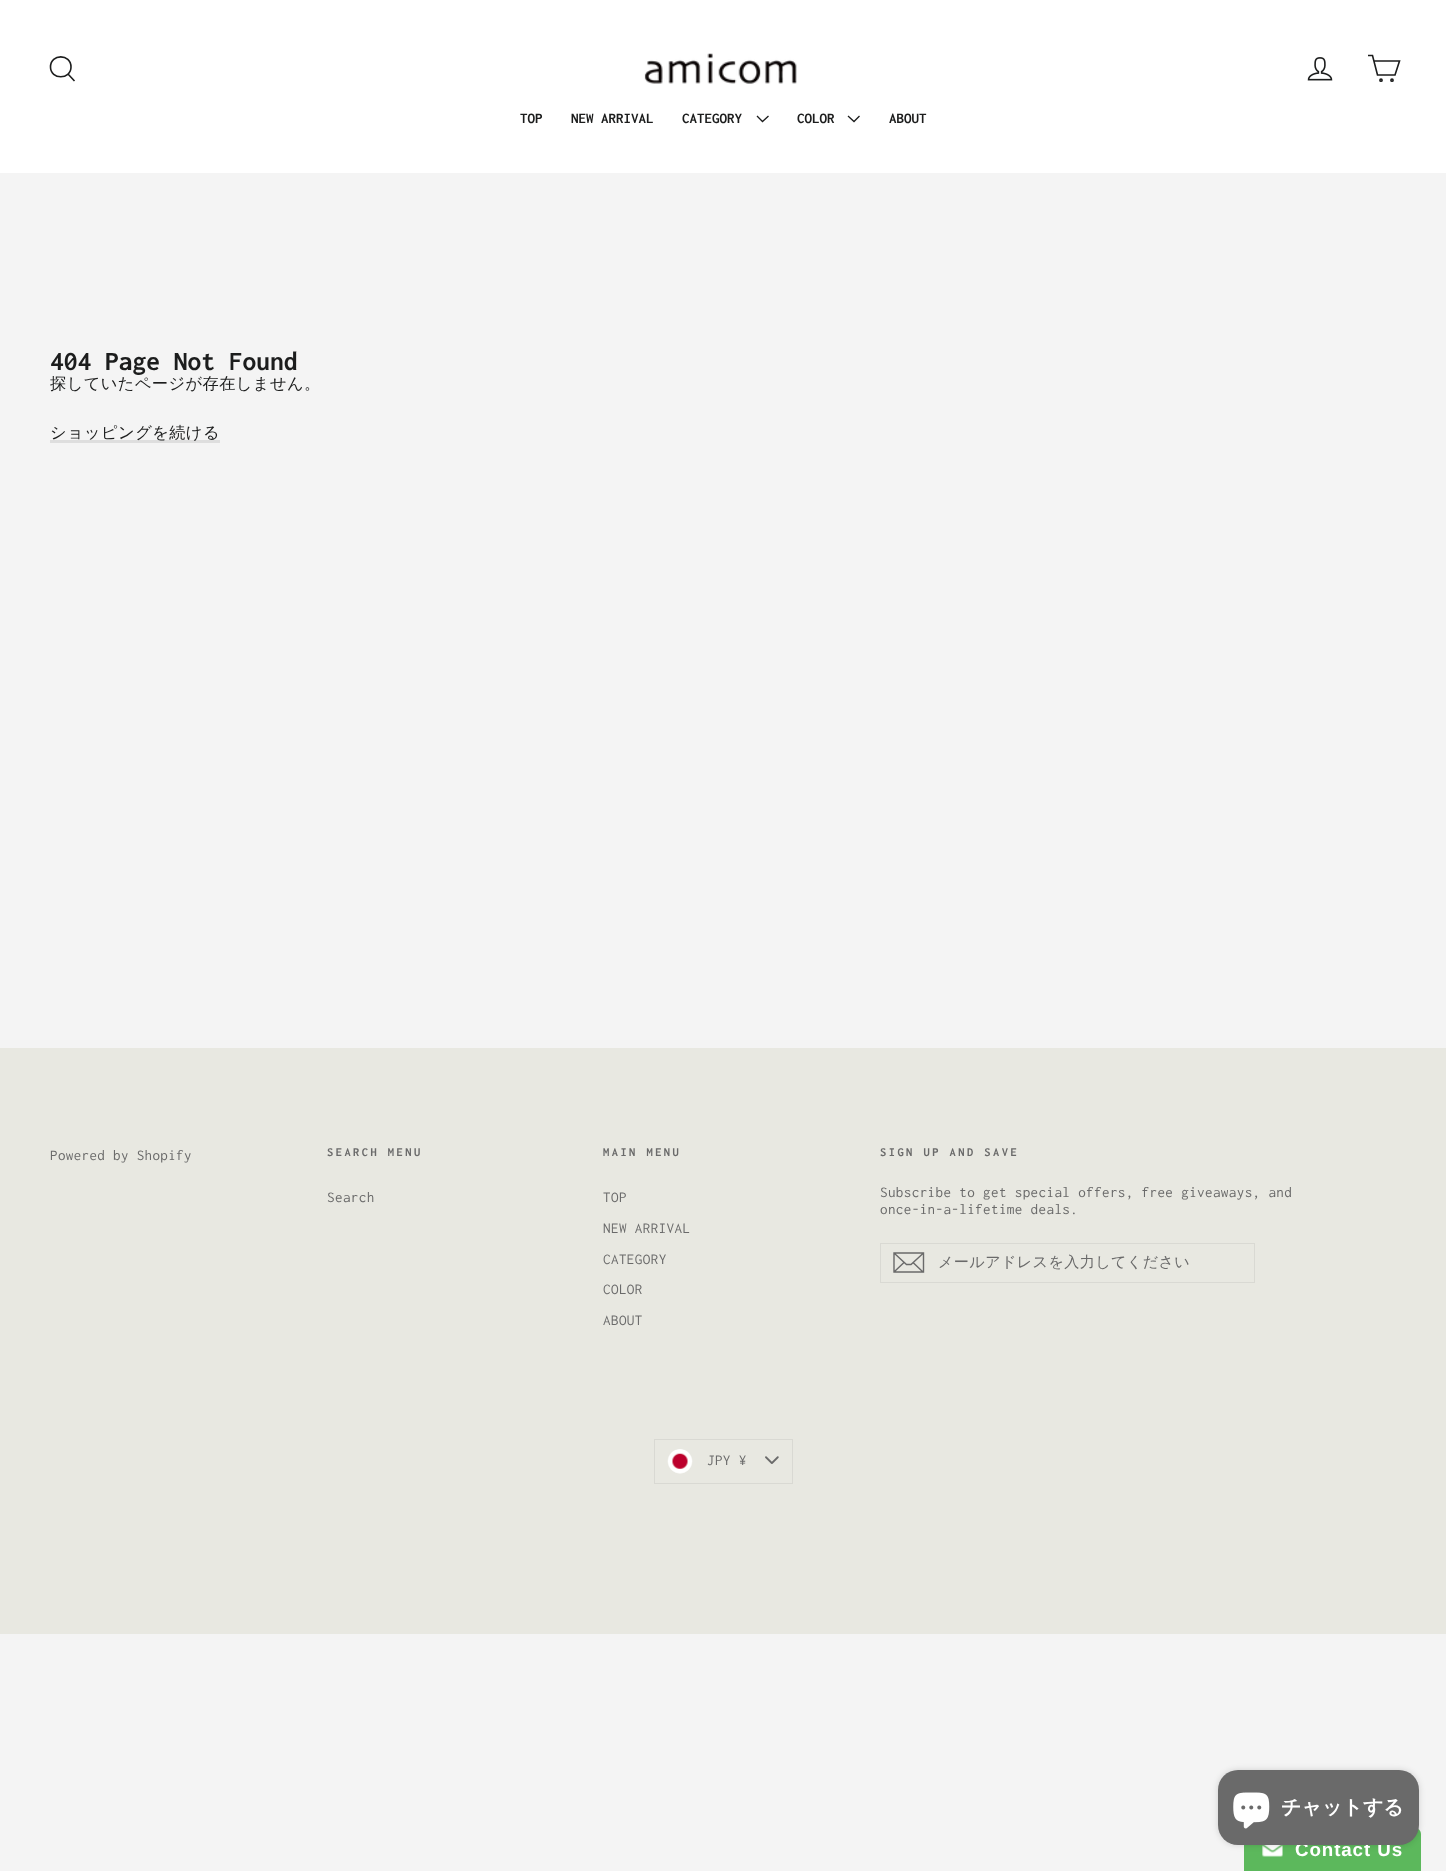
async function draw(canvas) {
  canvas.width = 1446
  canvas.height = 1871
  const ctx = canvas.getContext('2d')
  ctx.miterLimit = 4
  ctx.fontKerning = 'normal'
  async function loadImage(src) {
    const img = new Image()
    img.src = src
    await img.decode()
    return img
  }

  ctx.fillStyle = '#f4f4f4'
  ctx.fillRect(0, 0, 1446, 1871)
  ctx.fillStyle = '#fff'
  ctx.fillRect(0, 0, 1446, 173)
  ctx.beginPath()
  ctx.moveTo(71, 67)
  ctx.bezierCurveTo(71, 80, 50.5, 80, 50.5, 67)
  ctx.bezierCurveTo(50.5, 53.5, 71, 53.5, 71, 67)
  ctx.closePath()
  ctx.moveTo(74.5, 81)
  ctx.lineTo(68, 74)
  ctx.strokeStyle = '#1c1d1d'
  ctx.lineWidth = 1.6
  ctx.stroke()
  ctx.drawImage(await loadImage('image0.png'), 644, 53, 153, 31)
  ctx.drawImage(await loadImage('image1.png'), 1307, 57, 26, 24)
  ctx.beginPath()
  ctx.moveTo(1374, 61)
  ctx.lineTo(1399.5, 61)
  ctx.lineTo(1395, 75)
  ctx.lineTo(1377.5, 75)
  ctx.lineTo(1372.5, 55.5)
  ctx.lineTo(1368, 55.5)
  ctx.stroke()
  ctx.beginPath()
  ctx.arc(1381, 80.2, 1.1, 0, 2 * Math.PI)
  ctx.stroke()
  ctx.beginPath()
  ctx.arc(1392, 80.2, 1.1, 0, 2 * Math.PI)
  ctx.stroke()
  ctx.font = 'bold 15px Inconsolata'
  ctx.fillStyle = '#1c1d1d'
  ctx.fillText('TOP', 520, 123)
  ctx.fillText('NEW ARRIVAL', 571, 123)
  ctx.fillText('CATEGORY', 682, 123)
  ctx.beginPath()
  ctx.moveTo(757, 116)
  ctx.lineTo(762.5, 121.5)
  ctx.lineTo(768.5, 116)
  ctx.lineWidth = 1.3
  ctx.stroke()
  ctx.fillText('COLOR', 797, 123)
  ctx.beginPath()
  ctx.moveTo(848, 116)
  ctx.lineTo(854, 121.5)
  ctx.lineTo(859.5, 116)
  ctx.stroke()
  ctx.fillText('ABOUT', 889, 123)
  ctx.font = 'bold 27.5px Inconsolata'
  ctx.fillText('404 Page Not Found', 50, 370)
  ctx.letterSpacing = '0.4px'
  ctx.font = '500 16.25px WenQuanYi Zen Hei'
  ctx.fillText('探していたページが存在しません。', 50, 389)
  ctx.fillStyle = '#dedede'
  ctx.fillRect(50, 440, 170, 3)
  ctx.fillStyle = '#1c1d1d'
  ctx.fillText('ショッピングを続ける', 50, 438)
  ctx.fillStyle = '#e8e8e1'
  ctx.fillRect(0, 1048, 1446, 586)
  ctx.letterSpacing = '0.38px'
  ctx.font = '15px Inconsolata'
  ctx.fillStyle = '#6a6a6a'
  ctx.fillText('Powered by Shopify', 50, 1160)
  ctx.letterSpacing = '2.5px'
  ctx.font = 'bold 12.4px Inconsolata'
  ctx.fillText('SEARCH MENU', 327, 1156)
  ctx.letterSpacing = '0.4px'
  ctx.font = '15.1px Inconsolata'
  ctx.fillText('Search', 327, 1202)
  ctx.letterSpacing = '2.5px'
  ctx.font = 'bold 12.4px Inconsolata'
  ctx.fillText('MAIN MENU', 603, 1156)
  ctx.letterSpacing = '0.4px'
  ctx.font = '15.1px Inconsolata'
  ctx.fillText('TOP', 603, 1202)
  ctx.fillText('NEW ARRIVAL', 603, 1233)
  ctx.fillText('CATEGORY', 603, 1264)
  ctx.fillText('COLOR', 603, 1294)
  ctx.fillText('ABOUT', 603, 1325)
  ctx.letterSpacing = '2.5px'
  ctx.font = 'bold 12.4px Inconsolata'
  ctx.fillText('SIGN UP AND SAVE', 880, 1156)
  ctx.letterSpacing = '0.38px'
  ctx.font = '15.1px Inconsolata'
  ctx.fillText('Subscribe to get special offers, free giveaways, and', 880, 1197)
  ctx.fillText('once-in-a-lifetime deals.', 880, 1214)
  ctx.strokeStyle = '#d9d9d3'
  ctx.lineWidth = 1
  ctx.strokeRect(880.5, 1243.5, 374, 39)
  ctx.beginPath()
  ctx.moveTo(923.5, 1272)
  ctx.lineTo(894, 1272)
  ctx.lineTo(894, 1253)
  ctx.lineTo(923.5, 1253)
  ctx.closePath()
  ctx.moveTo(894, 1253)
  ctx.lineTo(906.5, 1264.5)
  ctx.lineTo(911, 1264.5)
  ctx.lineTo(923.5, 1253)
  ctx.moveTo(904, 1262.5)
  ctx.lineTo(894.5, 1271.5)
  ctx.moveTo(923, 1272)
  ctx.lineTo(913, 1262.5)
  ctx.strokeStyle = '#6a6a6a'
  ctx.lineWidth = 1.4
  ctx.stroke()
  ctx.font = '500 15.1px WenQuanYi Zen Hei'
  ctx.fillText('メールアドレスを入力してください', 938, 1267)
  ctx.drawImage(await loadImage('image2.png'), 765, 1456, 14, 8)
  ctx.strokeStyle = '#d9d9d3'
  ctx.lineWidth = 1
  ctx.strokeRect(654.5, 1439.5, 138, 44)
  ctx.drawImage(await loadImage('image3.png'), 667, 1449, 26, 25)
  ctx.font = '15.1px Inconsolata'
  ctx.fillText('JPY ¥', 707, 1465)
  ctx.fillStyle = '#5cb85c'
  ctx.beginPath()
  ctx.roundRect(1244, 1828, 177, 43, [6, 6, 0, 0])
  ctx.fill()
  ctx.drawImage(await loadImage('image5.png'), 1262, 1845, 21, 12)
  ctx.fillStyle = '#00000026'
  ctx.filter = 'blur(3px)'
  ctx.beginPath()
  ctx.roundRect(1218, 1770, 201, 75, 20)
  ctx.fill()
  ctx.filter = 'none'
  ctx.letterSpacing = '0.9px'
  ctx.font = 'bold 18.75px Liberation Sans'
  ctx.fillStyle = '#fff'
  ctx.fillText('Contact Us', 1295, 1856)
  ctx.fillStyle = '#6a6a6a'
  ctx.beginPath()
  ctx.roundRect(1218, 1770, 201, 75, 20)
  ctx.fill()
  ctx.drawImage(await loadImage('image4.png'), 1233, 1792, 37, 37)
  ctx.letterSpacing = '0px'
  ctx.font = 'bold 20px WenQuanYi Zen Hei'
  ctx.fillStyle = '#fff'
  ctx.fillText('チャットする', 1281, 1814)
}

draw(document.querySelector('canvas'))
